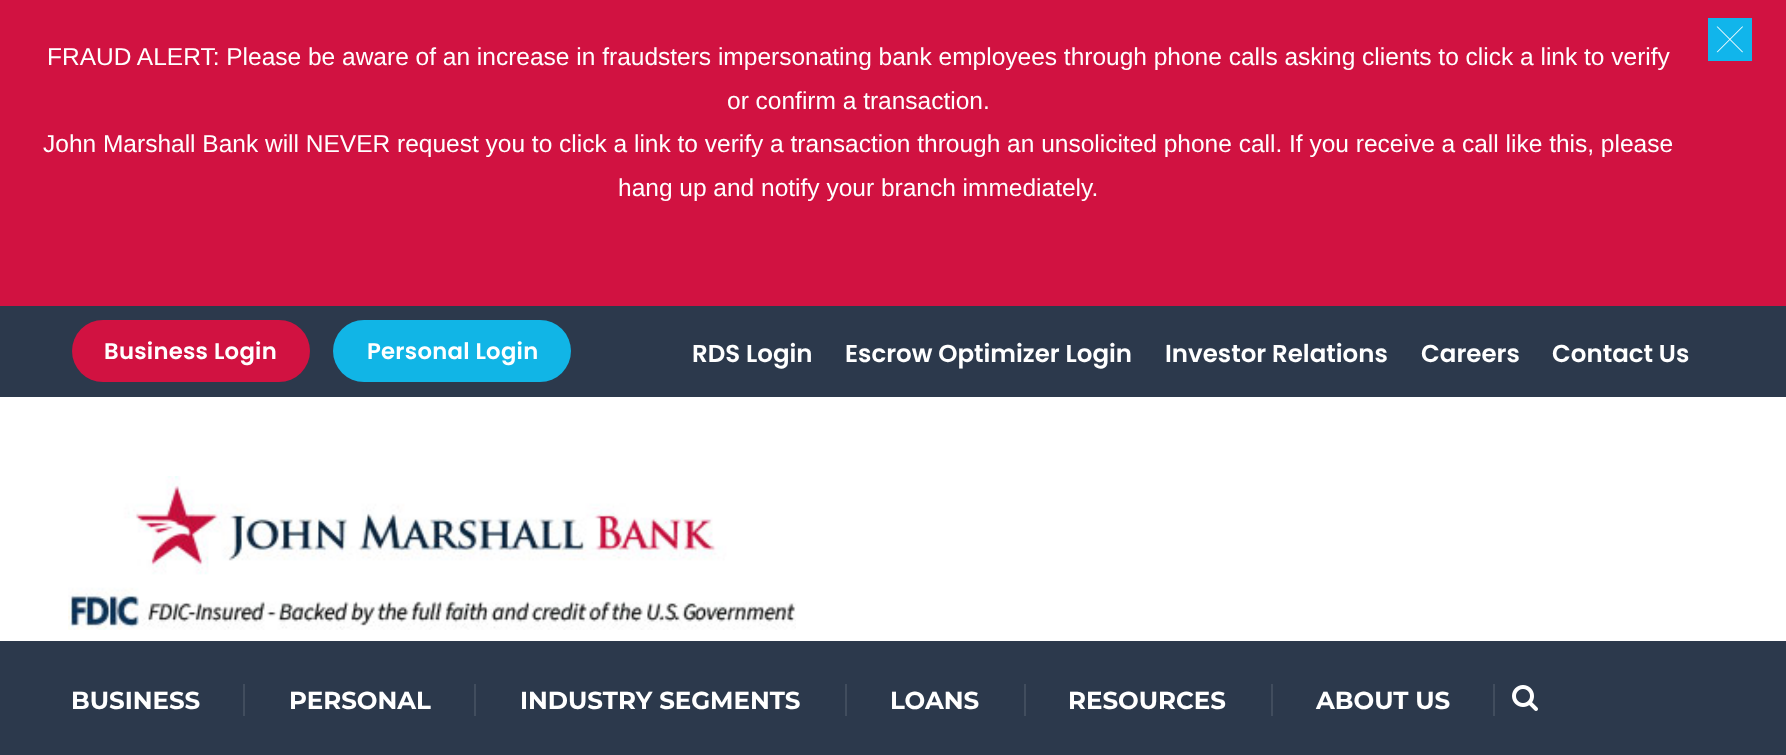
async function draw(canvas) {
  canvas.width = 1786
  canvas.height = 755
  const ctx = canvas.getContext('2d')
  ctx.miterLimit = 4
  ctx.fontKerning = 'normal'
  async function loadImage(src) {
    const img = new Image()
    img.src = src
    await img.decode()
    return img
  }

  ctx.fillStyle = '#2c394c'
  ctx.fillRect(0, 0, 1786, 755)
  ctx.fillStyle = '#d11241'
  ctx.fillRect(0, 0, 1786, 306)
  ctx.fillStyle = '#11b5eb'
  ctx.fillRect(1708, 18, 44, 43)
  ctx.drawImage(await loadImage('image0.png'), 1716, 26, 27, 27)
  ctx.font = '24.5px Liberation Sans'
  ctx.fillStyle = '#fff'
  ctx.fillText('FRAUD ALERT: Please be aware of an increase in fraudsters impersonating bank employees through phone calls asking clients to click a link to verify', 47, 65)
  ctx.fillText('or confirm a transaction.', 727, 109)
  ctx.fillText('John Marshall Bank will NEVER request you to click a link to verify a transaction through an unsolicited phone call. If you receive a call like this, please', 43, 152)
  ctx.fillText('hang up and notify your branch immediately.', 618, 196)
  ctx.fillStyle = '#d11241'
  ctx.beginPath()
  ctx.roundRect(72, 320, 238, 62, 31)
  ctx.fill()
  ctx.letterSpacing = '0.25px'
  ctx.font = '600 22.75px Poppins'
  ctx.fillStyle = '#fff'
  ctx.fillText('Business Login', 104, 359)
  ctx.fillStyle = '#11b5e6'
  ctx.beginPath()
  ctx.roundRect(333, 320, 238, 62, 31)
  ctx.fill()
  ctx.fillStyle = '#fff'
  ctx.fillText('Personal Login', 367, 359)
  ctx.letterSpacing = '0px'
  ctx.font = '600 24.5px Poppins'
  ctx.fillText('RDS Login', 692, 362)
  ctx.fillText('Escrow Optimizer Login', 845, 362)
  ctx.fillText('Investor Relations', 1165, 362)
  ctx.fillText('Careers', 1421, 362)
  ctx.fillText('Contact Us', 1552, 362)
  ctx.fillRect(0, 397, 1786, 244)
  ctx.drawImage(await loadImage('image1.png'), 68, 476, 728, 154)
  ctx.fillStyle = '#414d5e'
  ctx.fillRect(243, 684, 2, 32)
  ctx.font = 'bold 24.5px Montserrat'
  ctx.fillStyle = '#fff'
  ctx.fillText('BUSINESS', 71, 709)
  ctx.fillStyle = '#414d5e'
  ctx.fillRect(474, 684, 2, 32)
  ctx.fillStyle = '#fff'
  ctx.fillText('PERSONAL', 289, 709)
  ctx.fillStyle = '#414d5e'
  ctx.fillRect(845, 684, 2, 32)
  ctx.fillStyle = '#fff'
  ctx.fillText('INDUSTRY SEGMENTS', 520, 709)
  ctx.fillStyle = '#414d5e'
  ctx.fillRect(1024, 684, 2, 32)
  ctx.fillStyle = '#fff'
  ctx.fillText('LOANS', 890, 709)
  ctx.fillStyle = '#414d5e'
  ctx.fillRect(1271, 684, 2, 32)
  ctx.fillStyle = '#fff'
  ctx.fillText('RESOURCES', 1068, 709)
  ctx.fillStyle = '#414d5e'
  ctx.fillRect(1493, 684, 2, 32)
  ctx.fillStyle = '#fff'
  ctx.fillText('ABOUT US', 1316, 709)
  ctx.drawImage(await loadImage('image2.png'), 1512, 685, 26, 26)
}

draw(document.querySelector('canvas'))
